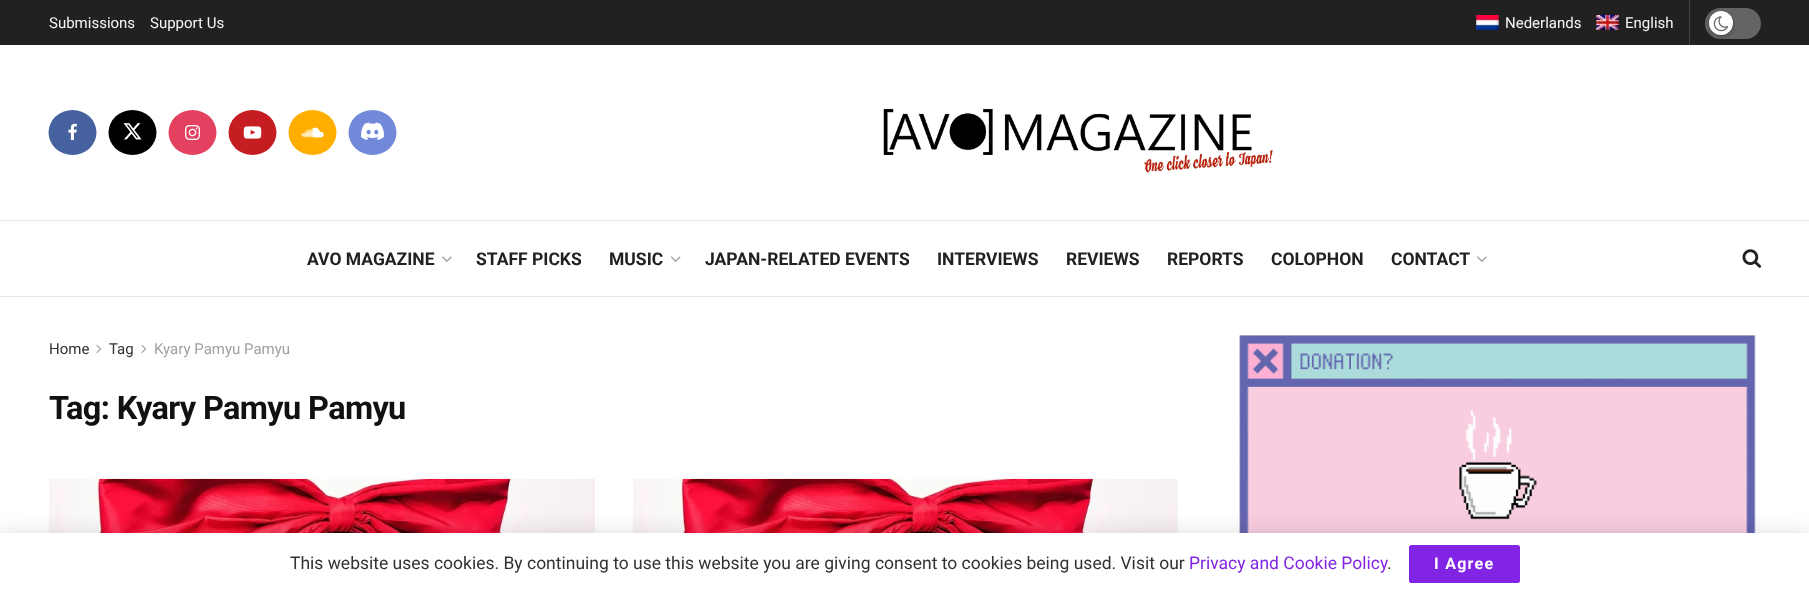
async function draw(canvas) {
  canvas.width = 1809
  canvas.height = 595
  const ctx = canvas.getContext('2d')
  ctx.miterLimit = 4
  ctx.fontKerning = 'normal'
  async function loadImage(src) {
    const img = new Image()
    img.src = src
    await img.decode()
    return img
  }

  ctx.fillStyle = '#fff'
  ctx.fillRect(0, 0, 1809, 595)
  ctx.fillStyle = '#212121'
  ctx.fillRect(0, 0, 1809, 45)
  ctx.font = '15px Roboto'
  ctx.fillStyle = '#f5f5f5'
  ctx.fillText('Submissions', 49, 28)
  ctx.fillText('Support Us', 150, 28)
  ctx.fillStyle = '#424242'
  ctx.fillRect(1689, 0, 1, 45)
  ctx.drawImage(await loadImage('image0.png'), 1476, 15, 23, 15)
  ctx.fillStyle = '#f5f5f5'
  ctx.fillText('Nederlands', 1505, 28)
  ctx.drawImage(await loadImage('image1.png'), 1596, 15, 23, 15)
  ctx.fillText('English', 1625, 28)
  ctx.fillStyle = '#646464'
  ctx.beginPath()
  ctx.roundRect(1705, 8, 56, 31, 15.5)
  ctx.fill()
  ctx.fillStyle = '#0000004d'
  ctx.filter = 'blur(2px)'
  ctx.beginPath()
  ctx.roundRect(1709, 13, 24, 23, 11.5)
  ctx.fill()
  ctx.filter = 'none'
  ctx.fillStyle = '#fff'
  ctx.beginPath()
  ctx.arc(1721, 23, 12, 0, 2 * Math.PI)
  ctx.fill()
  ctx.drawImage(await loadImage('image2.png'), 1713, 16, 16, 16)
  ctx.fillStyle = '#45629f'
  ctx.beginPath()
  ctx.ellipse(72.5, 132.5, 24, 22.5, 0, 0, 2 * Math.PI)
  ctx.fill()
  ctx.drawImage(await loadImage('image3.png'), 68, 123, 9, 17)
  ctx.fillStyle = '#000'
  ctx.beginPath()
  ctx.ellipse(132.5, 132.5, 24, 22.5, 0, 0, 2 * Math.PI)
  ctx.fill()
  ctx.drawImage(await loadImage('image4.png'), 123, 123, 19, 17)
  ctx.fillStyle = '#e4405f'
  ctx.beginPath()
  ctx.ellipse(192.5, 132.5, 24, 22.5, 0, 0, 2 * Math.PI)
  ctx.fill()
  ctx.drawImage(await loadImage('image5.png'), 185, 125, 15, 15)
  ctx.fillStyle = '#c61d23'
  ctx.beginPath()
  ctx.ellipse(252.5, 132.5, 24, 22.5, 0, 0, 2 * Math.PI)
  ctx.fill()
  ctx.drawImage(await loadImage('image6.png'), 243, 126, 19, 13)
  ctx.fillStyle = '#ffae00'
  ctx.beginPath()
  ctx.ellipse(312.5, 132.5, 24, 22.5, 0, 0, 2 * Math.PI)
  ctx.fill()
  ctx.drawImage(await loadImage('image7.png'), 301, 127, 23, 11)
  ctx.fillStyle = '#7289da'
  ctx.beginPath()
  ctx.ellipse(372.5, 132.5, 24, 22.5, 0, 0, 2 * Math.PI)
  ctx.fill()
  ctx.drawImage(await loadImage('image8.png'), 361, 122, 23, 18)
  ctx.drawImage(await loadImage('image9.png'), 883, 108, 390, 65)
  ctx.fillStyle = '#e8e8e8'
  ctx.fillRect(0, 220, 1809, 1)
  ctx.fillRect(0, 296, 1809, 1)
  ctx.font = 'bold 17.5px Roboto'
  ctx.fillStyle = '#212121'
  ctx.fillText('AVO MAGAZINE', 307, 265)
  ctx.drawImage(await loadImage('image10.png'), 442, 256, 10, 6)
  ctx.fillText('STAFF PICKS', 476, 265)
  ctx.fillText('MUSIC', 609, 265)
  ctx.drawImage(await loadImage('image11.png'), 670, 256, 11, 6)
  ctx.fillText('JAPAN-RELATED EVENTS', 705, 265)
  ctx.fillText('INTERVIEWS', 937, 265)
  ctx.fillText('REVIEWS', 1066, 265)
  ctx.fillText('REPORTS', 1167, 265)
  ctx.fillText('COLOPHON', 1271, 265)
  ctx.fillText('CONTACT', 1391, 265)
  ctx.drawImage(await loadImage('image10.png'), 1477, 256, 10, 6)
  ctx.drawImage(await loadImage('image12.png'), 1742, 249, 20, 19)
  ctx.font = '15px Roboto'
  ctx.fillStyle = '#323232'
  ctx.fillText('Home', 49, 354)
  ctx.drawImage(await loadImage('image13.png'), 96, 344, 6, 9)
  ctx.fillText('Tag', 109, 354)
  ctx.drawImage(await loadImage('image13.png'), 141, 344, 6, 9)
  ctx.fillStyle = '#a0a0a0'
  ctx.fillText('Kyary Pamyu Pamyu', 154, 354)
  ctx.letterSpacing = '-0.65px'
  ctx.font = 'bold 32.5px Roboto'
  ctx.fillStyle = '#111'
  ctx.fillText('Tag: Kyary Pamyu Pamyu', 49, 419)
  ctx.drawImage(await loadImage('image14.png'), 49, 478, 546, 55)
  ctx.fillStyle = '#f7f7f7'
  ctx.fillRect(1177, 479, 1, 54)
  ctx.drawImage(await loadImage('image15.png'), 633, 478, 544, 55)
  ctx.drawImage(await loadImage('image16.png'), 1239, 335, 517, 198)
  ctx.fillStyle = '#00000026'
  ctx.filter = 'blur(12.5px)'
  ctx.beginPath()
  ctx.rect(0, 535, 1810, 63)
  ctx.fill()
  ctx.filter = 'none'
  ctx.fillStyle = '#fff'
  ctx.fillRect(0, 533, 1809, 62)
  ctx.letterSpacing = '0px'
  ctx.font = '17.5px Roboto'
  ctx.fillStyle = '#323232'
  ctx.fillText('This website uses cookies. By continuing to use this website you are giving consent to cookies being used. Visit our', 290, 569)
  ctx.fillStyle = '#8224e3'
  ctx.fillText('Privacy and Cookie Policy', 1189, 569)
  ctx.fillStyle = '#323232'
  ctx.fillText('.', 1387, 569)
  ctx.fillStyle = '#8224e3'
  ctx.beginPath()
  ctx.roundRect(1409, 545, 111, 38, 2.5)
  ctx.fill()
  ctx.letterSpacing = '1.25px'
  ctx.font = 'bold 16px Roboto'
  ctx.fillStyle = '#fff'
  ctx.fillText('I Agree', 1434, 569)
}

draw(document.querySelector('canvas'))
